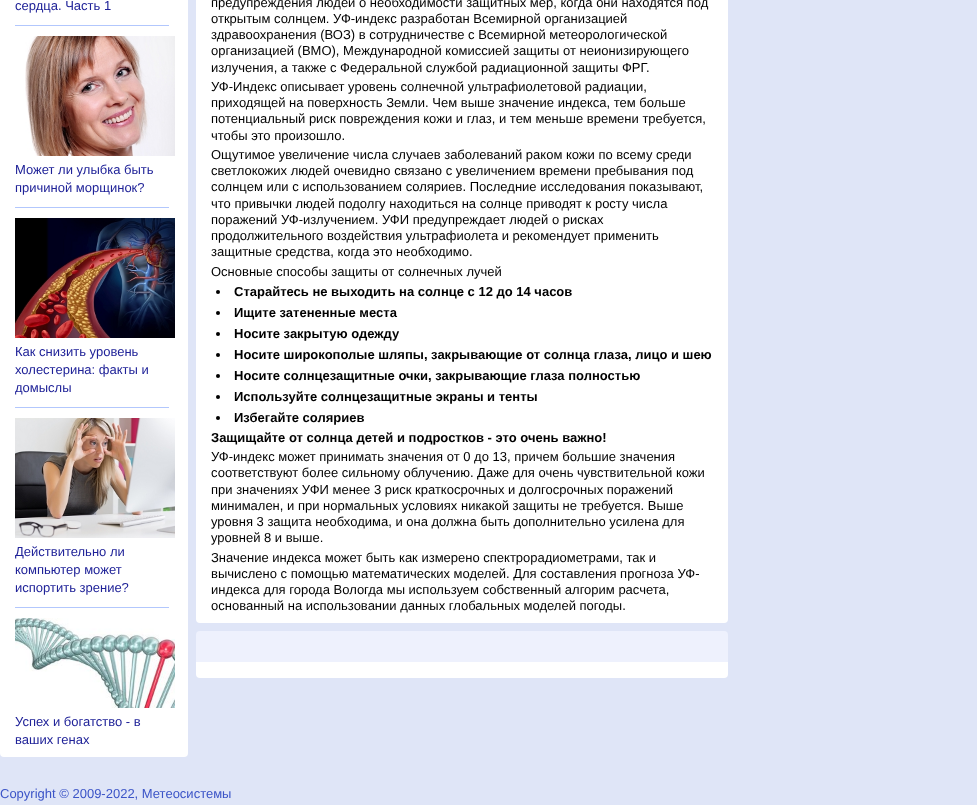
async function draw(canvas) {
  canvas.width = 977
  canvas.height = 805
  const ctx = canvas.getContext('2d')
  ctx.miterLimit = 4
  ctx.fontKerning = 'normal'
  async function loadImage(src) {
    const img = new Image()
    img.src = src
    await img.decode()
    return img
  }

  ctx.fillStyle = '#dfe5f7'
  ctx.fillRect(0, 0, 977, 805)
  ctx.fillStyle = '#fff'
  ctx.fillRect(0, 0, 188, 749)
  ctx.font = '13px Liberation Sans'
  ctx.fillStyle = '#1f2298'
  ctx.fillText('сердца. Часть 1', 15, 10)
  ctx.fillStyle = '#b2c7fd'
  ctx.fillRect(15, 25, 154, 1)
  ctx.drawImage(await loadImage('image0.png'), 25, 36, 150, 120)
  ctx.fillStyle = '#1f2298'
  ctx.fillText('Может ли улыбка быть', 15, 174)
  ctx.fillText('причиной морщинок?', 15, 192)
  ctx.fillStyle = '#b2c7fd'
  ctx.fillRect(15, 207, 154, 1)
  ctx.drawImage(await loadImage('image1.png'), 15, 218, 160, 120)
  ctx.fillStyle = '#1f2298'
  ctx.fillText('Как снизить уровень', 15, 356)
  ctx.fillText('холестерина: факты и', 15, 374)
  ctx.fillText('домыслы', 15, 392)
  ctx.fillStyle = '#b2c7fd'
  ctx.fillRect(15, 407, 154, 1)
  ctx.drawImage(await loadImage('image2.png'), 15, 418, 160, 120)
  ctx.fillStyle = '#1f2298'
  ctx.fillText('Действительно ли', 15, 556)
  ctx.fillText('компьютер может', 15, 574)
  ctx.fillText('испортить зрение?', 15, 592)
  ctx.fillStyle = '#b2c7fd'
  ctx.fillRect(15, 607, 154, 1)
  ctx.drawImage(await loadImage('image3.png'), 15, 618, 160, 90)
  ctx.fillStyle = '#1f2298'
  ctx.fillText('Успех и богатство - в', 15, 726)
  ctx.fillText('ваших генах', 15, 744)
  ctx.fillStyle = '#fff'
  ctx.beginPath()
  ctx.roundRect(0, 749, 188, 8, [0, 0, 4, 4])
  ctx.fill()
  ctx.fillRect(196, 0, 532, 615)
  ctx.fillStyle = '#000'
  ctx.fillText('предупреждения людей о необходимости защитных мер, когда они находятся под', 211, 7)
  ctx.fillText('открытым солнцем. УФ-индекс разработан Всемирной организацией', 211, 23)
  ctx.fillText('здравоохранения (ВОЗ) в сотрудничестве с Всемирной метеорологической', 211, 39)
  ctx.fillText('организацией (ВМО), Международной комиссией защиты от неионизирующего', 211, 55)
  ctx.fillText('излучения, а также с Федеральной службой радиационной защиты ФРГ.', 211, 72)
  ctx.fillText('УФ-Индекс описывает уровень солнечной ультрафиолетовой радиации,', 211, 91)
  ctx.fillText('приходящей на поверхность Земли. Чем выше значение индекса, тем больше', 211, 107)
  ctx.fillText('потенциальный риск повреждения кожи и глаз, и тем меньше времени требуется,', 211, 123)
  ctx.fillText('чтобы это произошло.', 211, 140)
  ctx.fillText('Ощутимое увеличение числа случаев заболеваний раком кожи по всему среди', 211, 159)
  ctx.fillText('светлокожих людей очевидно связано с увеличением времени пребывания под', 211, 175)
  ctx.fillText('солнцем или с использованием соляриев. Последние исследования показывают,', 211, 191)
  ctx.fillText('что привычки людей подолгу находиться на солнце приводят к росту числа', 211, 208)
  ctx.fillText('поражений УФ-излучением. УФИ предупреждает людей о рисках', 211, 224)
  ctx.fillText('продолжительного воздействия ультрафиолета и рекомендует применить', 211, 240)
  ctx.fillText('защитные средства, когда это необходимо.', 211, 256)
  ctx.fillText('Основные способы защиты от солнечных лучей', 211, 276)
  ctx.beginPath()
  ctx.arc(218, 292, 2, 0, 2 * Math.PI)
  ctx.fill()
  ctx.font = 'bold 13px Liberation Sans'
  ctx.fillText('Старайтесь не выходить на солнце с 12 до 14 часов', 234, 296)
  ctx.beginPath()
  ctx.arc(218, 313, 2, 0, 2 * Math.PI)
  ctx.fill()
  ctx.fillText('Ищите затененные места', 234, 317)
  ctx.beginPath()
  ctx.arc(218, 334, 2, 0, 2 * Math.PI)
  ctx.fill()
  ctx.fillText('Носите закрытую одежду', 234, 338)
  ctx.beginPath()
  ctx.arc(218, 355, 2, 0, 2 * Math.PI)
  ctx.fill()
  ctx.fillText('Носите широкополые шляпы, закрывающие от солнца глаза, лицо и шею', 234, 359)
  ctx.beginPath()
  ctx.arc(218, 376, 2, 0, 2 * Math.PI)
  ctx.fill()
  ctx.fillText('Носите солнцезащитные очки, закрывающие глаза полностью', 234, 380)
  ctx.beginPath()
  ctx.arc(218, 397, 2, 0, 2 * Math.PI)
  ctx.fill()
  ctx.fillText('Используйте солнцезащитные экраны и тенты', 234, 401)
  ctx.beginPath()
  ctx.arc(218, 418, 2, 0, 2 * Math.PI)
  ctx.fill()
  ctx.fillText('Избегайте соляриев', 234, 422)
  ctx.fillText('Защищайте от солнца детей и подростков - это очень важно!', 211, 442)
  ctx.font = '13px Liberation Sans'
  ctx.fillText('УФ-индекс может принимать значения от 0 до 13, причем большие значения', 211, 461)
  ctx.fillText('соответствуют более сильному облучению. Даже для очень чувствительной кожи', 211, 477)
  ctx.fillText('при значениях УФИ менее 3 риск краткосрочных и долгосрочных поражений', 211, 494)
  ctx.fillText('минимален, и при нормальных условиях никакой защиты не требуется. Выше', 211, 510)
  ctx.fillText('уровня 3 защита необходима, и она должна быть дополнительно усилена для', 211, 526)
  ctx.fillText('уровней 8 и выше.', 211, 542)
  ctx.fillText('Значение индекса может быть как измерено спектрорадиометрами, так и', 211, 562)
  ctx.fillText('вычислено с помощью математических моделей. Для составления прогноза УФ-', 211, 578)
  ctx.fillText('индекса для города Вологда мы используем собственный алгорим расчета,', 211, 594)
  ctx.fillText('основанный на использовании данных глобальных моделей погоды.', 211, 610)
  ctx.fillStyle = '#fff'
  ctx.beginPath()
  ctx.roundRect(196, 615, 532, 8, [0, 0, 4, 4])
  ctx.fill()
  ctx.fillStyle = '#eef1fd'
  ctx.beginPath()
  ctx.roundRect(196, 631, 532, 31, [4, 4, 0, 0])
  ctx.fill()
  ctx.fillStyle = '#fff'
  ctx.fillRect(196, 662, 532, 8)
  ctx.beginPath()
  ctx.roundRect(196, 670, 532, 8, [0, 0, 4, 4])
  ctx.fill()
  ctx.fillStyle = '#3b54c7'
  ctx.fillText('Copyright © 2009-2022, Метеосистемы', 0, 798)
}

draw(document.querySelector('canvas'))
